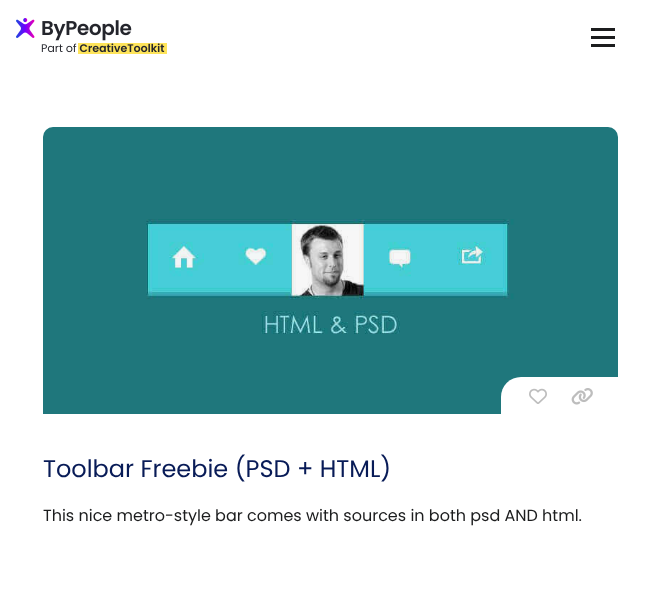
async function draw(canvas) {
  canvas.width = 661
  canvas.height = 593
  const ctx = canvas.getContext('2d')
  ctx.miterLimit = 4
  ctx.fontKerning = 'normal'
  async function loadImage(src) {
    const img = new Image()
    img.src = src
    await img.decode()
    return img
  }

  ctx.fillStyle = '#fff'
  ctx.fillRect(0, 0, 661, 593)
  ctx.drawImage(await loadImage('image0.png'), 16, 18, 151, 36)
  ctx.fillStyle = '#1c1d1e'
  ctx.fillRect(591, 36, 24, 3)
  ctx.fillRect(591, 28, 24, 3)
  ctx.fillRect(591, 44, 24, 3)
  ctx.drawImage(await loadImage('image1.png'), 43, 127, 575, 287)
  ctx.fillStyle = '#fff'
  ctx.beginPath()
  ctx.roundRect(501, 377, 118, 38, [20, 0, 0, 0])
  ctx.fill()
  ctx.drawImage(await loadImage('image2.png'), 529, 388, 18, 16)
  ctx.drawImage(await loadImage('image3.png'), 571, 388, 22, 17)
  ctx.font = '24px Poppins'
  ctx.fillStyle = '#081b57'
  ctx.fillText('Toolbar Freebie (PSD + HTML)', 43, 477)
  ctx.font = '16px Poppins'
  ctx.fillStyle = '#1c1d1e'
  ctx.fillText('This nice metro-style bar comes with sources in both psd AND html.', 43, 521)
}

draw(document.querySelector('canvas'))
